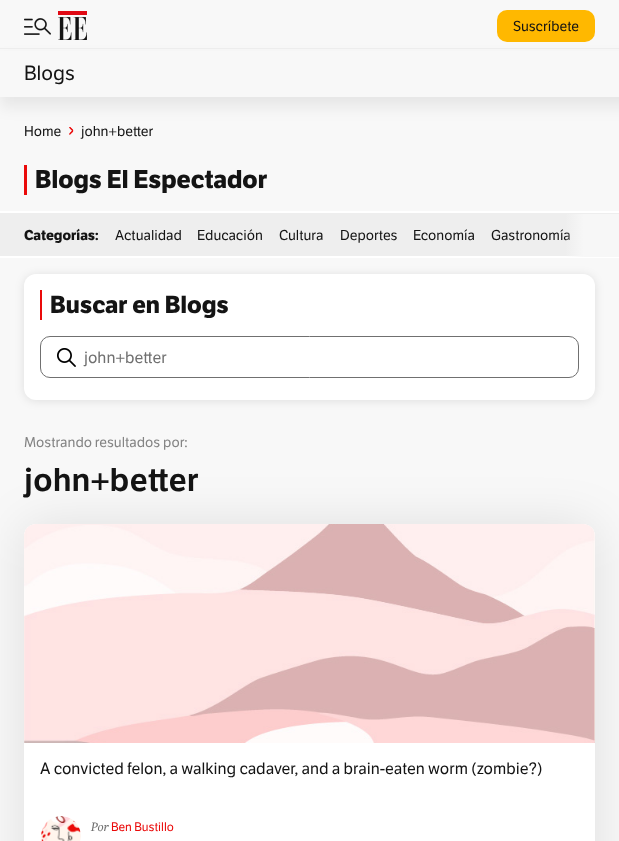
async function draw(canvas) {
  canvas.width = 619
  canvas.height = 841
  const ctx = canvas.getContext('2d')
  ctx.miterLimit = 4
  ctx.fontKerning = 'normal'
  async function loadImage(src) {
    const img = new Image()
    img.src = src
    await img.decode()
    return img
  }
  let gradient

  ctx.fillStyle = '#f8f8f8'
  ctx.fillRect(0, 0, 619, 841)
  ctx.fillStyle = '#eee'
  ctx.fillRect(0, 48, 619, 1)
  ctx.drawImage(await loadImage('image0.png'), 24, 18, 27, 17)
  ctx.drawImage(await loadImage('image1.png'), 58, 11, 29, 29)
  ctx.fillStyle = '#ffb800'
  ctx.beginPath()
  ctx.roundRect(497, 10, 98, 32, 10)
  ctx.fill()
  ctx.font = '14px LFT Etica'
  ctx.fillStyle = '#141414'
  ctx.fillText('Suscríbete', 513, 31)
  ctx.drawImage(await loadImage('image2.png'), 69, 127, 5, 8)
  ctx.fillStyle = '#00000012'
  ctx.filter = 'blur(7.5px)'
  ctx.beginPath()
  ctx.rect(0, 59, 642, 48)
  ctx.fill()
  ctx.filter = 'none'
  ctx.fillStyle = '#f8f8f8'
  ctx.fillRect(0, 51, 619, 46)
  ctx.font = '20px LFT Etica'
  ctx.fillStyle = '#141414'
  ctx.fillText('Blogs', 24, 80)
  ctx.font = '14px LFT Etica'
  ctx.fillText('Home', 24, 136)
  ctx.fillText('john+better', 81, 136)
  ctx.fillStyle = '#ea0a0a'
  ctx.fillRect(24, 165, 3, 30)
  ctx.font = 'bold 25px LFT Etica'
  ctx.fillStyle = '#141414'
  ctx.fillText('Blogs El Espectador', 35, 188)
  ctx.fillStyle = '#eee'
  ctx.fillRect(0, 213, 619, 43)
  ctx.fillStyle = '#fff'
  ctx.fillRect(0, 211, 619, 2)
  ctx.fillRect(0, 256, 619, 2)
  ctx.font = 'bold 14px LFT Etica'
  ctx.fillStyle = '#141414'
  ctx.fillText('Categorías:', 24, 240)
  ctx.font = '14px LFT Etica'
  ctx.fillText('Actualidad', 115, 240)
  ctx.fillText('Educación', 197, 240)
  ctx.fillText('Cultura', 279, 240)
  ctx.fillText('Deportes', 340, 240)
  ctx.fillText('Economía', 413, 240)
  ctx.fillText('Gastronomía', 491, 240)
  gradient = ctx.createLinearGradient(565, 236, 619, 236)
  gradient.addColorStop(0, '#f7f7f700')
  gradient.addColorStop(0.35, '#f7f7f7')
  ctx.fillStyle = gradient
  ctx.fillRect(565, 214, 54, 43)
  ctx.fillStyle = '#0000001a'
  ctx.filter = 'blur(5px)'
  ctx.beginPath()
  ctx.roundRect(24, 275, 571, 126, 12)
  ctx.fill()
  ctx.filter = 'none'
  ctx.fillStyle = '#fff'
  ctx.beginPath()
  ctx.roundRect(24, 274, 571, 126, 12)
  ctx.fill()
  ctx.fillStyle = '#ea0a0a'
  ctx.fillRect(40, 290, 2, 30)
  ctx.font = 'bold 24px LFT Etica'
  ctx.fillStyle = '#141414'
  ctx.fillText('Buscar en Blogs', 50, 313)
  ctx.beginPath()
  ctx.roundRect(40.5, 336.5, 538, 41, 9.5)
  ctx.strokeStyle = '#707070'
  ctx.stroke()
  ctx.drawImage(await loadImage('image3.png'), 57, 348, 19, 19)
  ctx.font = '16px LFT Etica'
  ctx.fillStyle = '#707070'
  ctx.fillText('john+better', 84, 363)
  ctx.font = '14px LFT Etica'
  ctx.fillStyle = '#848484'
  ctx.fillText('Mostrando resultados por:', 24, 447)
  ctx.font = '600 32px LFT Etica'
  ctx.fillStyle = '#141414'
  ctx.fillText('john+better', 24, 491)
  ctx.fillStyle = '#0000001a'
  ctx.filter = 'blur(25px)'
  ctx.beginPath()
  ctx.roundRect(24, 525, 571, 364, 12)
  ctx.fill()
  ctx.filter = 'none'
  ctx.fillStyle = '#fff'
  ctx.beginPath()
  ctx.roundRect(24, 524, 571, 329, 12)
  ctx.fill()
  ctx.drawImage(await loadImage('image4.png'), 24, 524, 571, 219)
  ctx.font = '16px LFT Etica'
  ctx.fillStyle = '#141414'
  ctx.fillText('A convicted felon, a walking cadaver, and a brain-eaten worm (zombie?)', 40, 774)
  ctx.drawImage(await loadImage('image5.png'), 41, 816, 40, 25)
  ctx.font = 'italic 12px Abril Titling'
  ctx.fillStyle = '#707070'
  ctx.fillText('Por', 91, 831)
  ctx.font = '12px LFT Etica'
  ctx.fillStyle = '#ea0a0a'
  ctx.fillText('Ben Bustillo', 111, 831)
}

draw(document.querySelector('canvas'))
